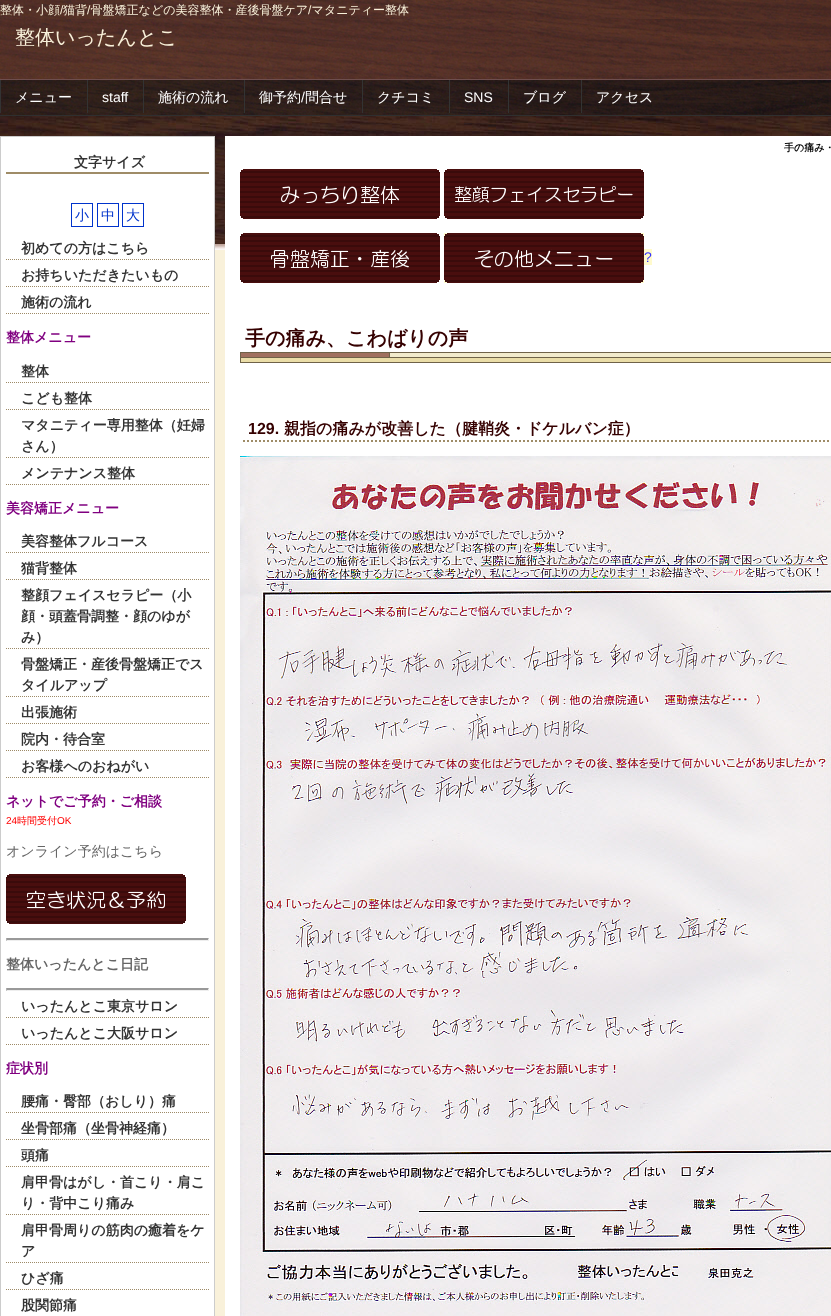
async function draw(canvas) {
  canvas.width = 831
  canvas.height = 1316
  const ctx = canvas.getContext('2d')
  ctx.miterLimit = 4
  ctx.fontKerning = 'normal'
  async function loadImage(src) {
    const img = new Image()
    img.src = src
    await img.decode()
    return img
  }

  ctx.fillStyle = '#fff'
  ctx.fillRect(0, 0, 831, 1316)
  ctx.drawImage(await loadImage('image0.png'), 0, 0, 831, 19)
  ctx.font = '500 12px WenQuanYi Zen Hei'
  ctx.fillStyle = '#f9f1da'
  ctx.fillText('整体・小顔', 0, 14)
  ctx.font = '12px Liberation Sans'
  ctx.fillText('/', 60, 14)
  ctx.font = '500 12px WenQuanYi Zen Hei'
  ctx.fillText('猫背 骨盤矯正などの美容整体・産後骨盤ケア マタニティー整体', 63, 14)
  ctx.font = '12px Liberation Sans'
  ctx.fillText('/', 87, 14)
  ctx.fillText('/', 308, 14)
  ctx.fillRect(215, 250, 10, 1066)
  ctx.drawImage(await loadImage('image1.png'), 0, 116, 831, 134)
  ctx.drawImage(await loadImage('image2.png'), 0, 19, 831, 60)
  ctx.font = '500 20px WenQuanYi Zen Hei'
  ctx.fillText('整体いったんとこ', 15, 44)
  ctx.drawImage(await loadImage('image3.png'), 0, 80, 831, 35)
  ctx.fillStyle = '#6e4e4e'
  ctx.fillRect(0, 79, 831, 1)
  ctx.fillStyle = '#2f2f2f'
  ctx.fillRect(0, 115, 831, 1)
  ctx.fillStyle = '#333'
  ctx.fillRect(0, 80, 1, 33)
  ctx.font = '500 14px WenQuanYi Zen Hei'
  ctx.fillStyle = '#fff'
  ctx.fillText('メニュー', 15, 102)
  ctx.fillStyle = '#333'
  ctx.fillRect(87, 80, 1, 33)
  ctx.font = '14px Liberation Sans'
  ctx.fillStyle = '#fff'
  ctx.fillText('staff', 102, 102)
  ctx.fillStyle = '#333'
  ctx.fillRect(143, 80, 1, 33)
  ctx.font = '500 14px WenQuanYi Zen Hei'
  ctx.fillStyle = '#fff'
  ctx.fillText('施術の流れ', 158, 102)
  ctx.fillStyle = '#333'
  ctx.fillRect(244, 80, 1, 33)
  ctx.fillStyle = '#fff'
  ctx.fillText('御予約', 259, 102)
  ctx.font = '14px Liberation Sans'
  ctx.fillText('/', 301, 102)
  ctx.font = '500 14px WenQuanYi Zen Hei'
  ctx.fillText('問合せ', 305, 102)
  ctx.fillStyle = '#333'
  ctx.fillRect(362, 80, 1, 33)
  ctx.fillStyle = '#fff'
  ctx.fillText('クチコミ', 377, 102)
  ctx.fillStyle = '#333'
  ctx.fillRect(449, 80, 1, 33)
  ctx.font = '14px Liberation Sans'
  ctx.fillStyle = '#fff'
  ctx.fillText('SNS', 464, 102)
  ctx.fillStyle = '#333'
  ctx.fillRect(508, 80, 1, 33)
  ctx.font = '500 14px WenQuanYi Zen Hei'
  ctx.fillStyle = '#fff'
  ctx.fillText('ブログ', 523, 102)
  ctx.fillStyle = '#333'
  ctx.fillRect(581, 80, 1, 33)
  ctx.fillStyle = '#fff'
  ctx.fillText('アクセス', 596, 102)
  ctx.fillRect(1, 137, 213, 113)
  ctx.strokeStyle = '#ccc'
  ctx.strokeRect(0.5, 136.5, 214, 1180)
  ctx.fillStyle = '#9f8c67'
  ctx.fillRect(6, 172, 203, 2)
  ctx.font = 'bold 14px WenQuanYi Zen Hei'
  ctx.fillStyle = '#333'
  ctx.fillText('文字サイズ', 74, 167)
  ctx.strokeStyle = '#03c'
  ctx.strokeRect(71.5, 203.5, 21, 23)
  ctx.font = '500 14px WenQuanYi Zen Hei'
  ctx.fillStyle = '#03c'
  ctx.fillText('小', 75, 220)
  ctx.strokeRect(97.5, 203.5, 21, 23)
  ctx.fillText('中', 101, 220)
  ctx.strokeRect(122.5, 203.5, 21, 23)
  ctx.fillText('大', 126, 220)
  ctx.beginPath()
  ctx.moveTo(6, 259.5)
  ctx.lineTo(209, 259.5)
  ctx.strokeStyle = '#9d8a66'
  ctx.setLineDash([1, 1])
  ctx.stroke()
  ctx.font = 'bold 14px WenQuanYi Zen Hei'
  ctx.fillStyle = '#333'
  ctx.fillText('初めての方はこちら', 21, 253)
  ctx.beginPath()
  ctx.moveTo(6, 286.5)
  ctx.lineTo(209, 286.5)
  ctx.stroke()
  ctx.fillText('お持ちいただきたいもの', 21, 280)
  ctx.beginPath()
  ctx.moveTo(6, 313.5)
  ctx.lineTo(209, 313.5)
  ctx.stroke()
  ctx.fillText('施術の流れ', 21, 307)
  ctx.fillStyle = '#800080'
  ctx.fillText('整体メニュー', 6, 342)
  ctx.beginPath()
  ctx.moveTo(6, 382.5)
  ctx.lineTo(209, 382.5)
  ctx.stroke()
  ctx.fillStyle = '#333'
  ctx.fillText('整体', 21, 376)
  ctx.beginPath()
  ctx.moveTo(6, 409.5)
  ctx.lineTo(209, 409.5)
  ctx.stroke()
  ctx.fillText('こども整体', 21, 403)
  ctx.beginPath()
  ctx.moveTo(6, 457.5)
  ctx.lineTo(209, 457.5)
  ctx.stroke()
  ctx.fillText('マタニティー専用整体（妊婦', 21, 430)
  ctx.fillText('さん）', 21, 451)
  ctx.beginPath()
  ctx.moveTo(6, 484.5)
  ctx.lineTo(209, 484.5)
  ctx.stroke()
  ctx.fillText('メンテナンス整体', 21, 478)
  ctx.fillStyle = '#800080'
  ctx.fillText('美容矯正メニュー', 6, 513)
  ctx.beginPath()
  ctx.moveTo(6, 552.5)
  ctx.lineTo(209, 552.5)
  ctx.stroke()
  ctx.fillStyle = '#333'
  ctx.fillText('美容整体フルコース', 21, 546)
  ctx.beginPath()
  ctx.moveTo(6, 579.5)
  ctx.lineTo(209, 579.5)
  ctx.stroke()
  ctx.fillText('猫背整体', 21, 573)
  ctx.beginPath()
  ctx.moveTo(6, 648.5)
  ctx.lineTo(209, 648.5)
  ctx.stroke()
  ctx.fillText('整顔フェイスセラピー（小', 21, 600)
  ctx.fillText('顔・頭蓋骨調整・顔のゆが', 21, 621)
  ctx.fillText('み）', 21, 642)
  ctx.beginPath()
  ctx.moveTo(6, 696.5)
  ctx.lineTo(209, 696.5)
  ctx.stroke()
  ctx.fillText('骨盤矯正・産後骨盤矯正でス', 21, 669)
  ctx.fillText('タイルアップ', 21, 690)
  ctx.beginPath()
  ctx.moveTo(6, 723.5)
  ctx.lineTo(209, 723.5)
  ctx.stroke()
  ctx.fillText('出張施術', 21, 717)
  ctx.beginPath()
  ctx.moveTo(6, 750.5)
  ctx.lineTo(209, 750.5)
  ctx.stroke()
  ctx.fillText('院内・待合室', 21, 744)
  ctx.beginPath()
  ctx.moveTo(6, 777.5)
  ctx.lineTo(209, 777.5)
  ctx.stroke()
  ctx.fillText('お客様へのおねがい', 21, 771)
  ctx.fillStyle = '#800080'
  ctx.fillText('ネットでご予約・ご相談', 6, 806)
  ctx.font = '10px Liberation Sans'
  ctx.fillStyle = '#f00'
  ctx.fillText('24', 6, 824)
  ctx.font = '500 10px WenQuanYi Zen Hei'
  ctx.fillText('時間受付', 17, 824)
  ctx.font = '10px Liberation Sans'
  ctx.fillText('OK', 57, 824)
  ctx.font = '500 14px WenQuanYi Zen Hei'
  ctx.fillStyle = '#666'
  ctx.fillText('オンライン予約はこちら', 6, 856)
  ctx.drawImage(await loadImage('image4.png'), 6, 874, 180, 50)
  ctx.fillStyle = '#999'
  ctx.beginPath()
  ctx.moveTo(6, 938)
  ctx.lineTo(209, 938)
  ctx.lineTo(208, 940)
  ctx.lineTo(7, 940)
  ctx.closePath()
  ctx.fill()
  ctx.fillStyle = '#eee'
  ctx.beginPath()
  ctx.moveTo(209, 938)
  ctx.lineTo(209, 941)
  ctx.lineTo(208, 940)
  ctx.closePath()
  ctx.fill()
  ctx.fillRect(6, 940, 203, 1)
  ctx.fillStyle = '#9f9f9f'
  ctx.beginPath()
  ctx.moveTo(6, 941)
  ctx.lineTo(6, 938)
  ctx.lineTo(7, 940)
  ctx.closePath()
  ctx.fill()
  ctx.font = 'bold 14px WenQuanYi Zen Hei'
  ctx.fillStyle = '#666'
  ctx.fillText('整体いったんとこ日記', 6, 969)
  ctx.fillStyle = '#999'
  ctx.beginPath()
  ctx.moveTo(6, 988)
  ctx.lineTo(209, 988)
  ctx.lineTo(208, 990)
  ctx.lineTo(7, 990)
  ctx.closePath()
  ctx.fill()
  ctx.fillStyle = '#eee'
  ctx.beginPath()
  ctx.moveTo(209, 988)
  ctx.lineTo(209, 991)
  ctx.lineTo(208, 990)
  ctx.closePath()
  ctx.fill()
  ctx.fillRect(6, 990, 203, 1)
  ctx.fillStyle = '#9f9f9f'
  ctx.beginPath()
  ctx.moveTo(6, 991)
  ctx.lineTo(6, 988)
  ctx.lineTo(7, 990)
  ctx.closePath()
  ctx.fill()
  ctx.beginPath()
  ctx.moveTo(6, 1017.5)
  ctx.lineTo(209, 1017.5)
  ctx.stroke()
  ctx.fillStyle = '#333'
  ctx.fillText('いったんとこ東京サロン', 21, 1011)
  ctx.beginPath()
  ctx.moveTo(6, 1044.5)
  ctx.lineTo(209, 1044.5)
  ctx.stroke()
  ctx.fillText('いったんとこ大阪サロン', 21, 1038)
  ctx.fillStyle = '#800080'
  ctx.fillText('症状別', 6, 1073)
  ctx.beginPath()
  ctx.moveTo(6, 1112.5)
  ctx.lineTo(209, 1112.5)
  ctx.stroke()
  ctx.fillStyle = '#333'
  ctx.fillText('腰痛・臀部（おしり）痛', 21, 1106)
  ctx.beginPath()
  ctx.moveTo(6, 1139.5)
  ctx.lineTo(209, 1139.5)
  ctx.stroke()
  ctx.fillText('坐骨部痛（坐骨神経痛）', 21, 1133)
  ctx.beginPath()
  ctx.moveTo(6, 1166.5)
  ctx.lineTo(209, 1166.5)
  ctx.stroke()
  ctx.fillText('頭痛', 21, 1160)
  ctx.beginPath()
  ctx.moveTo(6, 1214.5)
  ctx.lineTo(209, 1214.5)
  ctx.stroke()
  ctx.fillText('肩甲骨はがし・首こり・肩こ', 21, 1187)
  ctx.fillText('り・背中こり痛み', 21, 1208)
  ctx.beginPath()
  ctx.moveTo(6, 1262.5)
  ctx.lineTo(209, 1262.5)
  ctx.stroke()
  ctx.fillText('肩甲骨周りの筋肉の癒着をケ', 21, 1235)
  ctx.fillText('ア', 21, 1256)
  ctx.beginPath()
  ctx.moveTo(6, 1289.5)
  ctx.lineTo(209, 1289.5)
  ctx.stroke()
  ctx.fillText('ひざ痛', 21, 1283)
  ctx.fillText('股関節痛', 21, 1310)
  ctx.fillStyle = '#fff'
  ctx.fillRect(225, 136, 606, 114)
  ctx.font = 'bold 10px WenQuanYi Zen Hei'
  ctx.fillStyle = '#000'
  ctx.fillText('手の痛み・', 784, 151)
  ctx.drawImage(await loadImage('image5.png'), 240, 169, 200, 50)
  ctx.drawImage(await loadImage('image6.png'), 444, 169, 200, 50)
  ctx.drawImage(await loadImage('image7.png'), 240, 233, 200, 50)
  ctx.fillStyle = '#fffacc'
  ctx.fillRect(444, 233, 200, 50)
  ctx.drawImage(await loadImage('image8.png'), 444, 233, 200, 50)
  ctx.fillRect(644, 249, 8, 16)
  ctx.font = '14px Liberation Sans'
  ctx.fillStyle = '#33f'
  ctx.fillText('?', 644, 262)
  ctx.drawImage(await loadImage('image9.png'), 240, 352, 591, 11)
  ctx.font = 'bold 20px WenQuanYi Zen Hei'
  ctx.fillStyle = '#350000'
  ctx.fillText('手の痛み、こわばりの声', 245, 345)
  ctx.beginPath()
  ctx.moveTo(243, 441)
  ctx.lineTo(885, 441)
  ctx.strokeStyle = '#9f8c67'
  ctx.lineWidth = 2
  ctx.setLineDash([2, 2])
  ctx.stroke()
  ctx.font = 'bold 16px Liberation Sans'
  ctx.fillText('129.', 248, 434)
  ctx.font = 'bold 16px WenQuanYi Zen Hei'
  ctx.fillText('親指の痛みが改善した（腱鞘炎・ドケルバン症）', 284, 434)
  ctx.drawImage(await loadImage('image10.png'), 240, 456, 591, 860)
}

draw(document.querySelector('canvas'))
